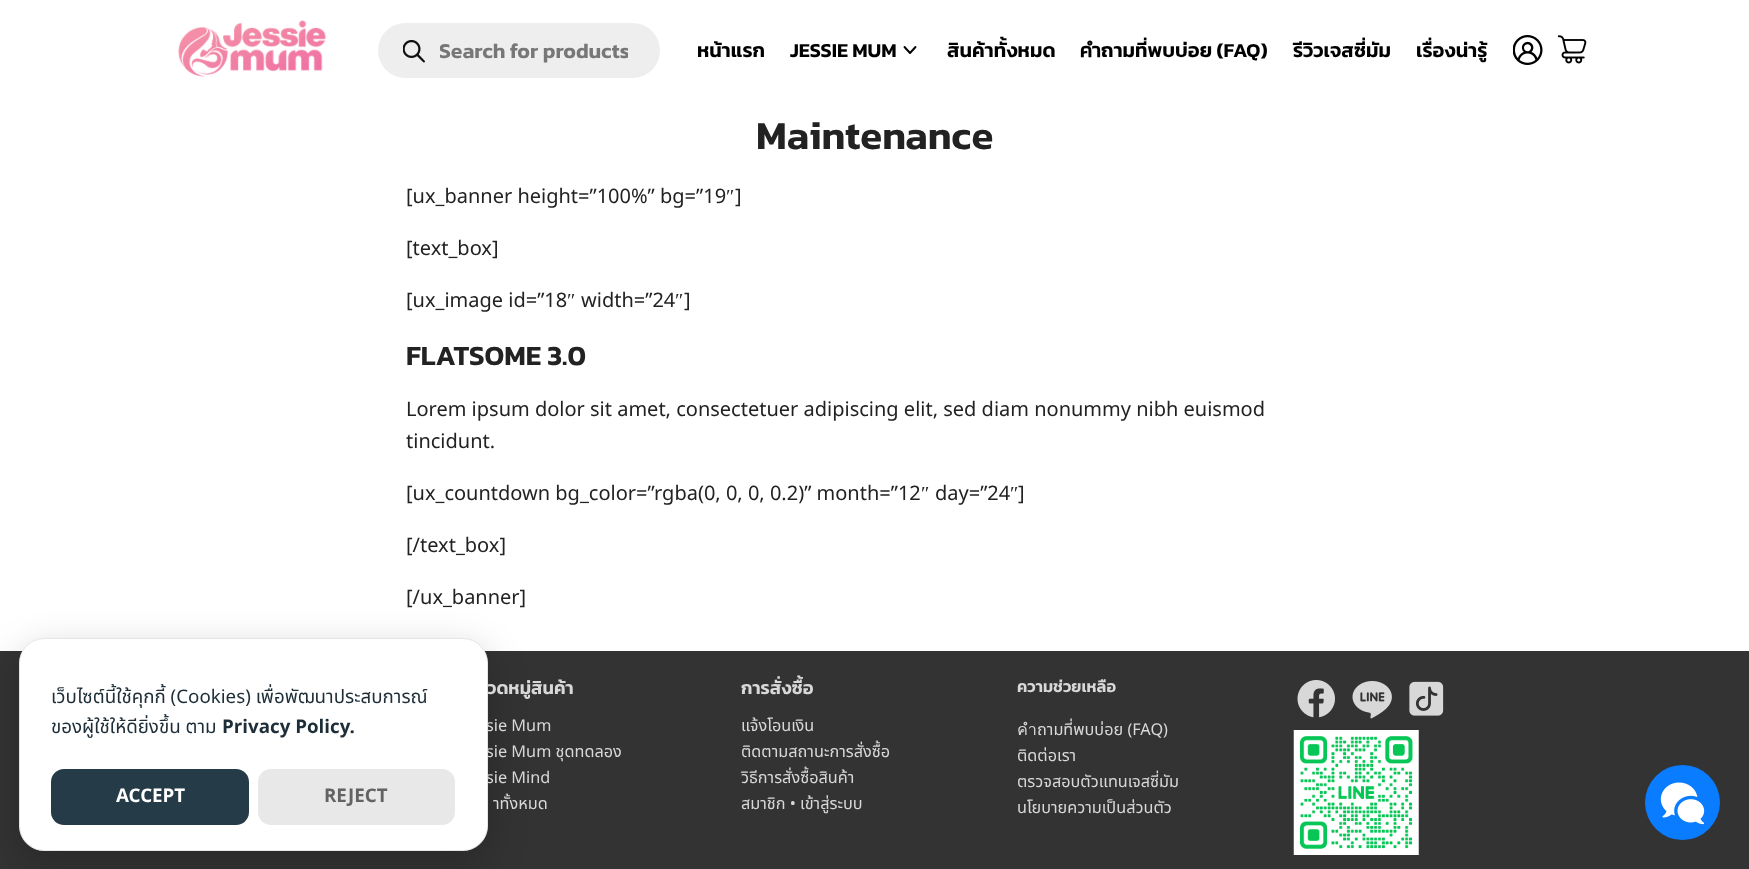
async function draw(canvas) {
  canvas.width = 1749
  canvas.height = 869
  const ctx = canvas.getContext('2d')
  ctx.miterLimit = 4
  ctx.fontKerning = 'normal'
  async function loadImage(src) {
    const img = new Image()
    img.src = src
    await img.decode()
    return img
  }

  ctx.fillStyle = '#fff'
  ctx.fillRect(0, 0, 1749, 869)
  ctx.drawImage(await loadImage('image0.png'), 178, 20, 149, 57)
  ctx.fillStyle = '#eee'
  ctx.beginPath()
  ctx.roundRect(378, 23, 282, 55, 27.5)
  ctx.fill()
  ctx.drawImage(await loadImage('image1.png'), 403, 40, 22, 23)
  ctx.save()
  ctx.beginPath()
  ctx.rect(440, 34, 188, 32)
  ctx.clip()
  ctx.font = '600 21.25px Kanit'
  ctx.fillStyle = '#777'
  ctx.fillText('Search for products', 439, 58)
  ctx.restore()
  ctx.font = '600 20px Kanit'
  ctx.fillStyle = '#000'
  ctx.fillText('หน้าแรก', 697, 57)
  ctx.fillText('JESSIE MUM', 790, 57)
  ctx.beginPath()
  ctx.moveTo(904.5, 47)
  ctx.lineTo(910, 53)
  ctx.lineTo(915.5, 47)
  ctx.strokeStyle = '#000'
  ctx.lineWidth = 1.9
  ctx.lineCap = 'round'
  ctx.lineJoin = 'round'
  ctx.stroke()
  ctx.fillText('สินค้าทั้งหมด', 947, 57)
  ctx.fillText('คำถามที่พบบ่อย (FAQ)', 1080, 57)
  ctx.fillText('รีวิวเจสซี่มัม', 1293, 57)
  ctx.fillText('เรื่องน่ารู้', 1416, 57)
  ctx.drawImage(await loadImage('image2.png'), 1513, 35, 30, 30)
  ctx.drawImage(await loadImage('image3.png'), 1558, 35, 29, 29)
  ctx.font = '600 40px Kanit'
  ctx.fillStyle = '#222'
  ctx.fillText('Maintenance', 756, 149)
  ctx.font = '20px Noto Sans Thai'
  ctx.fillText('[ux_banner height=”100%” bg=”19', 406, 203)
  ctx.font = '20px Liberation Serif'
  ctx.fillText('″', 726, 203)
  ctx.font = '20px Noto Sans Thai'
  ctx.fillText(']', 735, 203)
  ctx.fillText('[text_box]', 406, 255)
  ctx.fillText('[ux_image id=”18', 406, 307)
  ctx.font = '20px Liberation Serif'
  ctx.fillText('″', 567, 307)
  ctx.font = '20px Noto Sans Thai'
  ctx.fillText('width=”24', 581, 307)
  ctx.font = '20px Liberation Serif'
  ctx.fillText('″', 675, 307)
  ctx.font = '20px Noto Sans Thai'
  ctx.fillText(']', 684, 307)
  ctx.font = '600 28px Kanit'
  ctx.fillText('FLATSOME 3.0', 406, 365)
  ctx.font = '20px Noto Sans Thai'
  ctx.fillText('Lorem ipsum dolor sit amet, consectetuer adipiscing elit, sed diam nonummy nibh euismod', 406, 416)
  ctx.fillText('tincidunt.', 406, 448)
  ctx.fillText('[ux_countdown bg_color=”rgba(0, 0, 0, 0.2)” month=”12', 406, 500)
  ctx.font = '20px Liberation Serif'
  ctx.fillText('″', 921, 500)
  ctx.font = '20px Noto Sans Thai'
  ctx.fillText('day=”24', 935, 500)
  ctx.font = '20px Liberation Serif'
  ctx.fillText('″', 1010, 500)
  ctx.font = '20px Noto Sans Thai'
  ctx.fillText(']', 1018, 500)
  ctx.fillText('[/text_box]', 406, 552)
  ctx.fillText('[/ux_banner]', 406, 604)
  ctx.fillStyle = '#333'
  ctx.fillRect(0, 651, 1749, 218)
  ctx.fillStyle = '#02020333'
  ctx.filter = 'blur(19px)'
  ctx.beginPath()
  ctx.roundRect(19, 650, 469, 214, 25)
  ctx.fill()
  ctx.filter = 'none'
  ctx.font = '600 18.25px Kanit'
  ctx.fillStyle = '#d8d8d8'
  ctx.fillText('วดหมู่สินค้า', 487, 694)
  ctx.font = '16.25px Noto Sans Thai'
  ctx.fillText('sie Mum', 486, 731)
  ctx.fillText('sie Mum ชุดทดลอง', 486, 757)
  ctx.fillText('sie Mind', 486, 783)
  ctx.fillStyle = '#fff'
  ctx.beginPath()
  ctx.roundRect(19.5, 638.5, 468, 212, 24.5)
  ctx.fill()
  ctx.strokeStyle = '#e6e6e6'
  ctx.lineWidth = 1
  ctx.lineJoin = 'miter'
  ctx.stroke()
  ctx.font = '18.75px Noto Sans Thai'
  ctx.fillStyle = '#1d2e38'
  ctx.fillText('เว็บไซต์นี้ใช้คุกกี้ (Cookies) เพื่อพัฒนาประสบการณ์', 51, 703)
  ctx.fillText('ของผู้ใช้ให้ดียิ่งขึ้น ตาม', 51, 733)
  ctx.font = 'bold 18.75px Noto Sans Thai'
  ctx.fillText('Privacy Policy.', 222, 733)
  ctx.fillStyle = '#253b48'
  ctx.beginPath()
  ctx.roundRect(51, 769, 198, 56, 13)
  ctx.fill()
  ctx.fillStyle = '#fff'
  ctx.fillText('ACCEPT', 116, 802)
  ctx.fillStyle = '#e8e8e8'
  ctx.beginPath()
  ctx.roundRect(258, 769, 197, 56, 13)
  ctx.fill()
  ctx.fillStyle = '#636363'
  ctx.fillText('REJECT', 324, 802)
  ctx.font = '16.25px Noto Sans Thai'
  ctx.fillStyle = '#d8d8d8'
  ctx.fillText('าทั้งหมด', 493, 809)
  ctx.font = '600 18.25px Kanit'
  ctx.fillText('การสั่งซื้อ', 741, 694)
  ctx.font = '16.25px Noto Sans Thai'
  ctx.fillText('แจ้งโอนเงิน', 741, 731)
  ctx.fillText('ติดตามสถานะการสั่งซื้อ', 741, 757)
  ctx.fillText('วิธีการสั่งซื้อสินค้า', 741, 783)
  ctx.fillText('สมาชิก • เข้าสู่ระบบ', 741, 809)
  ctx.font = '600 16.25px Kanit'
  ctx.fillText('ความช่วยเหลือ', 1017, 692)
  ctx.font = '16.25px Noto Sans Thai'
  ctx.fillText('คำถามที่พบบ่อย (FAQ)', 1017, 735)
  ctx.fillText('ติดต่อเรา', 1017, 761)
  ctx.fillText('ตรวจสอบตัวแทนเจสซี่มัม', 1017, 787)
  ctx.fillText('นโยบายความเป็นส่วนตัว', 1017, 813)
  ctx.drawImage(await loadImage('image4.png'), 1297, 680, 38, 38)
  ctx.drawImage(await loadImage('image5.png'), 1352, 681, 40, 38)
  ctx.drawImage(await loadImage('image6.png'), 1409, 681, 35, 35)
  ctx.drawImage(await loadImage('image7.png'), 1293, 730, 126, 125)
  ctx.fillStyle = '#0a7cff'
  ctx.beginPath()
  ctx.arc(1682.5, 802.5, 37.5, 0, 2 * Math.PI)
  ctx.fill()
  ctx.drawImage(await loadImage('image8.png'), 1660, 782, 45, 43)
}

draw(document.querySelector('canvas'))
